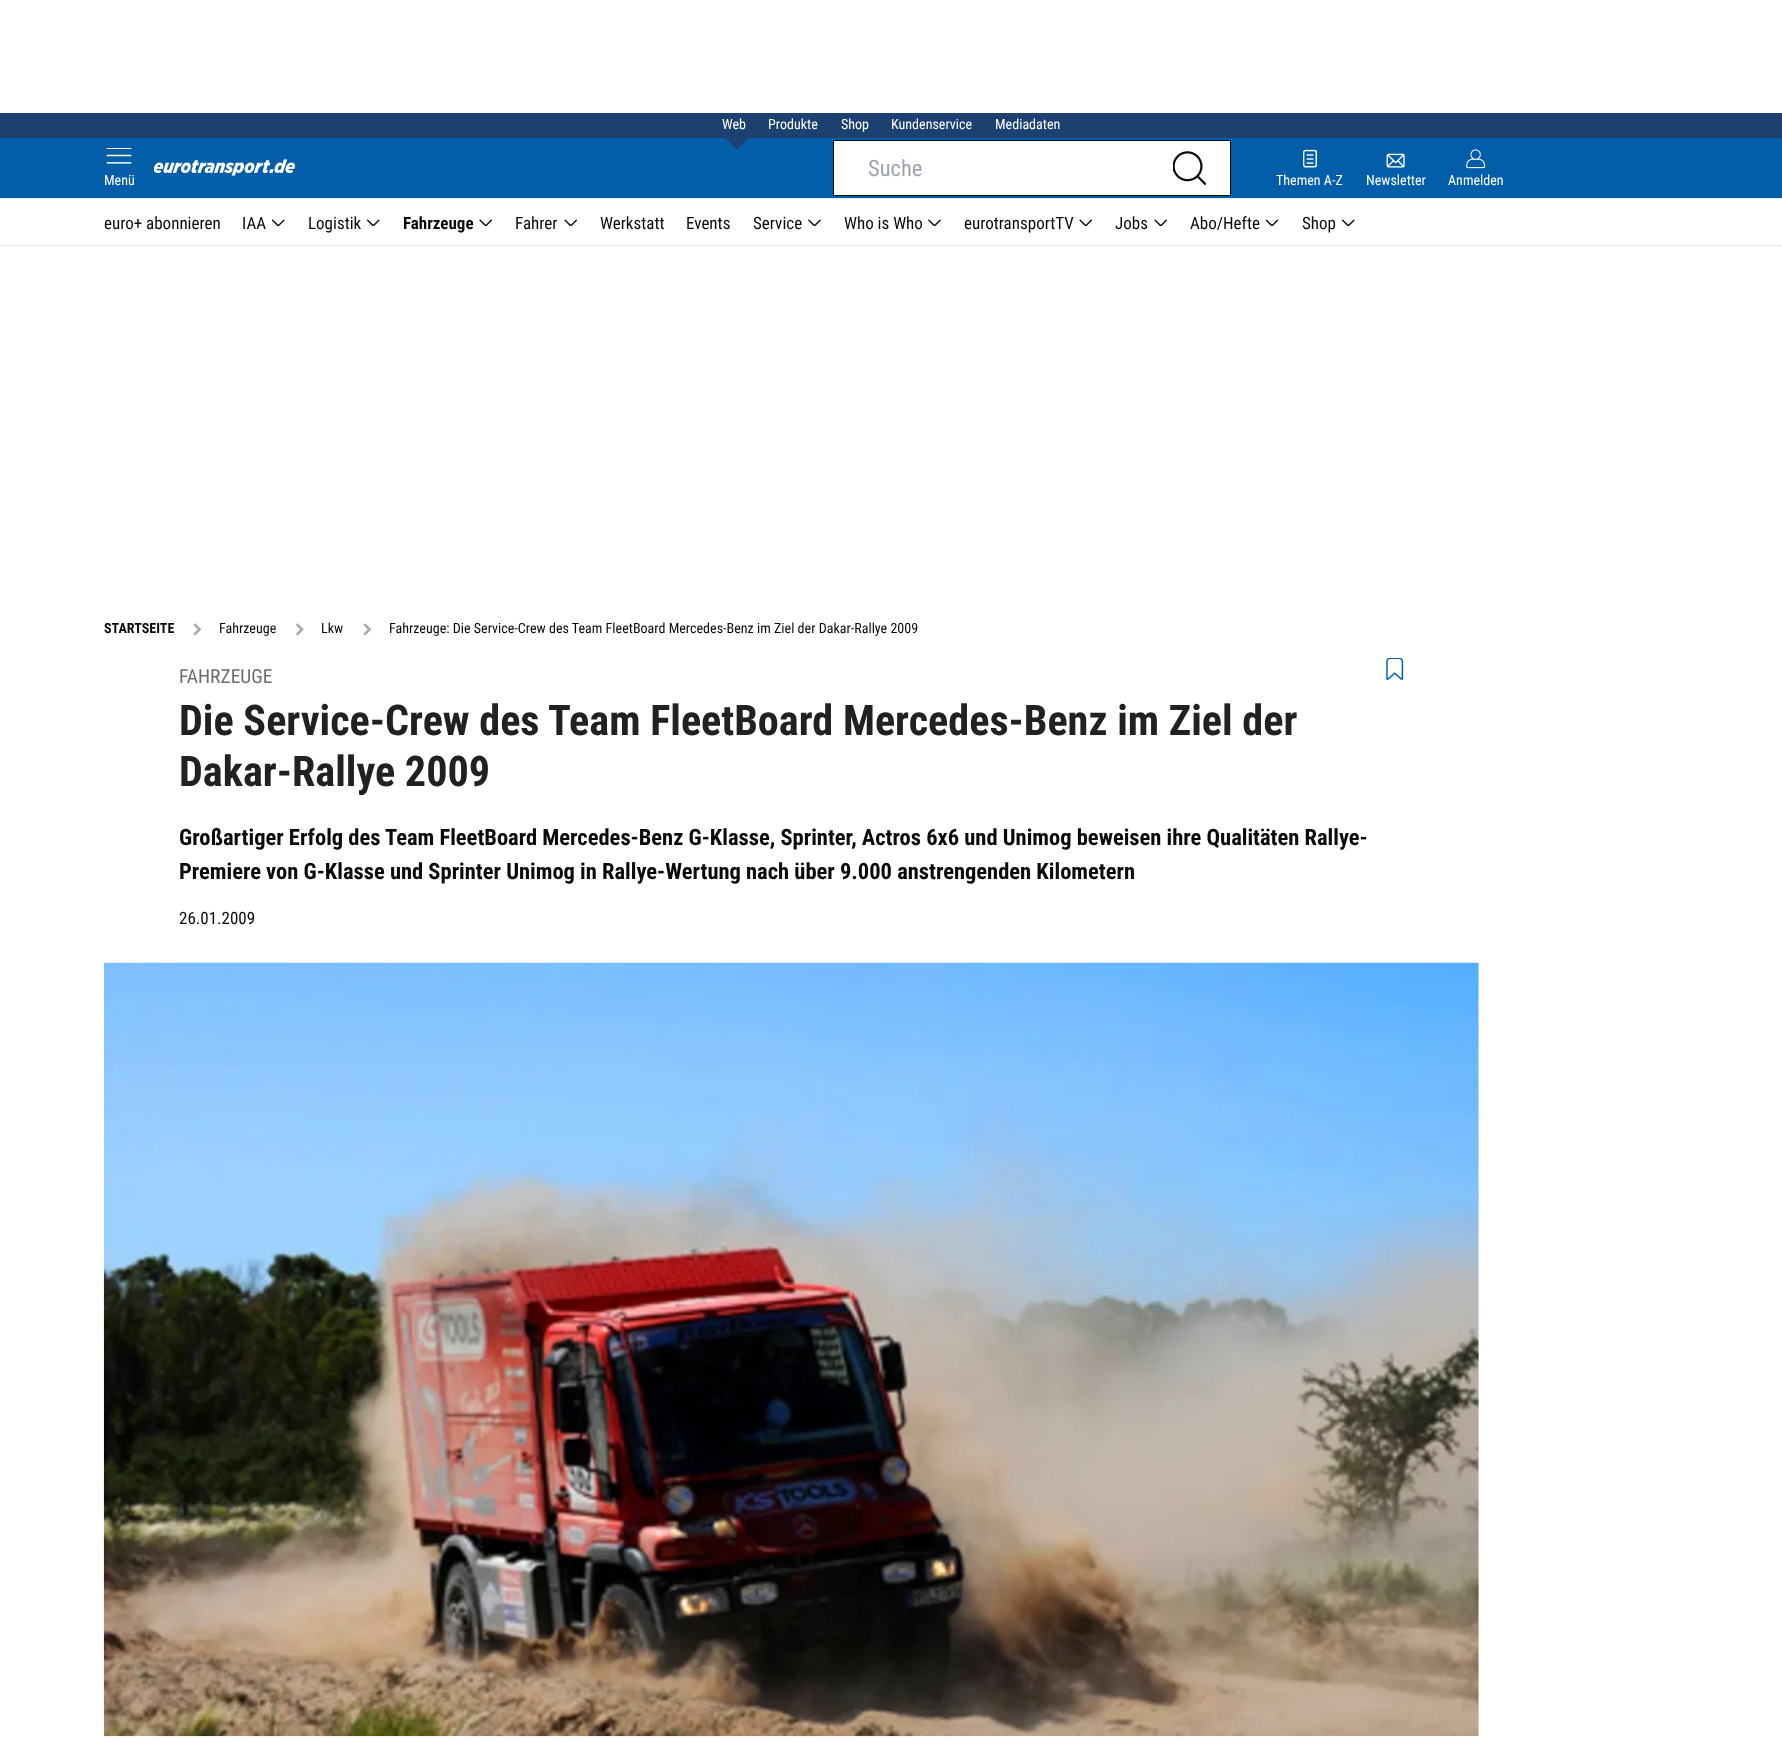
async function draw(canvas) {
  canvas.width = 1782
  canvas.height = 1760
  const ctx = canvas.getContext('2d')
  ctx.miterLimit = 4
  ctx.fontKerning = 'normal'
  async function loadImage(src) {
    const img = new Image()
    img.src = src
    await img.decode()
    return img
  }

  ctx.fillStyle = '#fff'
  ctx.fillRect(0, 0, 1782, 1760)
  ctx.fillStyle = '#1c4170'
  ctx.fillRect(0, 113, 1782, 25)
  ctx.fillStyle = '#025ea9'
  ctx.fillRect(0, 138, 1782, 60)
  ctx.fillStyle = '#1c4170'
  ctx.beginPath()
  ctx.moveTo(737, 117.5)
  ctx.lineTo(753, 133.5)
  ctx.lineTo(737, 149.5)
  ctx.lineTo(721, 133.5)
  ctx.closePath()
  ctx.fill()
  ctx.font = '14.05px Roboto Condensed'
  ctx.fillStyle = '#fff'
  ctx.fillText('Web', 722, 129)
  ctx.fillText('Produkte', 768, 129)
  ctx.fillText('Shop', 841, 129)
  ctx.fillText('Kundenservice', 891, 129)
  ctx.fillText('Mediadaten', 995, 129)
  ctx.drawImage(await loadImage('image0.png'), 106, 148, 26, 16)
  ctx.fillText('Menü', 104, 185)
  ctx.drawImage(await loadImage('image1.png'), 154, 159, 141, 17)
  ctx.beginPath()
  ctx.rect(833.5, 140.5, 397, 55)
  ctx.fill()
  ctx.strokeStyle = '#0a0a0a'
  ctx.stroke()
  ctx.font = '22.5px Roboto Condensed'
  ctx.fillStyle = '#9ca3af'
  ctx.fillText('Suche', 868, 176)
  ctx.drawImage(await loadImage('image2.png'), 1173, 151, 33, 34)
  ctx.drawImage(await loadImage('image3.png'), 1303, 149, 15, 19)
  ctx.font = '14.05px Roboto Condensed'
  ctx.fillStyle = '#fff'
  ctx.fillText('Themen A-Z', 1276, 185)
  ctx.drawImage(await loadImage('image4.png'), 1386, 153, 19, 15)
  ctx.fillText('Newsletter', 1366, 185)
  ctx.drawImage(await loadImage('image5.png'), 1466, 149, 19, 20)
  ctx.fillText('Anmelden', 1448, 185)
  ctx.fillStyle = '#ebebeb'
  ctx.fillRect(0, 198, 1782, 1)
  ctx.font = '17px Roboto Condensed'
  ctx.fillStyle = '#0a0a0a'
  ctx.fillText('euro+ abonnieren', 104, 229)
  ctx.fillText('IAA', 242, 229)
  ctx.drawImage(await loadImage('image6.png'), 271, 219, 14, 7)
  ctx.fillText('Logistik', 308, 229)
  ctx.drawImage(await loadImage('image6.png'), 366, 219, 14, 7)
  ctx.font = 'bold 17px Roboto Condensed'
  ctx.fillText('Fahrzeuge', 403, 229)
  ctx.drawImage(await loadImage('image7.png'), 479, 219, 13, 7)
  ctx.font = '17px Roboto Condensed'
  ctx.fillText('Fahrer', 515, 229)
  ctx.drawImage(await loadImage('image7.png'), 564, 219, 13, 7)
  ctx.fillText('Werkstatt', 600, 229)
  ctx.fillText('Events', 686, 229)
  ctx.fillText('Service', 753, 229)
  ctx.drawImage(await loadImage('image8.png'), 808, 219, 13, 7)
  ctx.fillText('Who is Who', 844, 229)
  ctx.drawImage(await loadImage('image8.png'), 928, 219, 13, 7)
  ctx.fillText('eurotransportTV', 964, 229)
  ctx.drawImage(await loadImage('image7.png'), 1079, 219, 13, 7)
  ctx.fillText('Jobs', 1115, 229)
  ctx.drawImage(await loadImage('image7.png'), 1154, 219, 13, 7)
  ctx.fillText('Abo/Hefte', 1190, 229)
  ctx.drawImage(await loadImage('image9.png'), 1265, 219, 14, 7)
  ctx.fillText('Shop', 1302, 229)
  ctx.drawImage(await loadImage('image6.png'), 1341, 219, 14, 7)
  ctx.fillStyle = '#ebebeb'
  ctx.fillRect(0, 245, 1782, 1)
  ctx.font = 'bold 14.05px Roboto Condensed'
  ctx.fillStyle = '#0a0a0a'
  ctx.fillText('STARTSEITE', 104, 633)
  ctx.drawImage(await loadImage('image10.png'), 193, 623, 9, 13)
  ctx.font = '14.05px Roboto Condensed'
  ctx.fillText('Fahrzeuge', 219, 633)
  ctx.drawImage(await loadImage('image11.png'), 295, 623, 9, 13)
  ctx.fillText('Lkw', 321, 633)
  ctx.drawImage(await loadImage('image10.png'), 363, 623, 9, 13)
  ctx.fillText('Fahrzeuge: Die Service-Crew des Team FleetBoard Mercedes-Benz im Ziel der Dakar-Rallye 2009', 389, 633)
  ctx.font = '19.5px Roboto Condensed'
  ctx.fillStyle = '#6b6d6e'
  ctx.fillText('FAHRZEUGE', 179, 683)
  ctx.font = 'bold 42.2px Roboto Condensed'
  ctx.fillStyle = '#212121'
  ctx.fillText('Die Service-Crew des Team FleetBoard Mercedes-Benz im Ziel der', 179, 735)
  ctx.fillText('Dakar-Rallye 2009', 179, 786)
  ctx.drawImage(await loadImage('image12.png'), 1386, 658, 18, 22)
  ctx.font = 'bold 22.5px Roboto Condensed'
  ctx.fillStyle = '#0a0a0a'
  ctx.fillText('Großartiger Erfolg des Team FleetBoard Mercedes-Benz G-Klasse, Sprinter, Actros 6x6 und Unimog beweisen ihre Qualitäten Rallye-', 179, 845)
  ctx.fillText('Premiere von G-Klasse und Sprinter Unimog in Rallye-Wertung nach über 9.000 anstrengenden Kilometern', 179, 879)
  ctx.font = '17px Roboto Condensed'
  ctx.fillText('26.01.2009', 179, 924)
  ctx.drawImage(await loadImage('image13.png'), 103, 962, 1376, 775)
}

draw(document.querySelector('canvas'))
